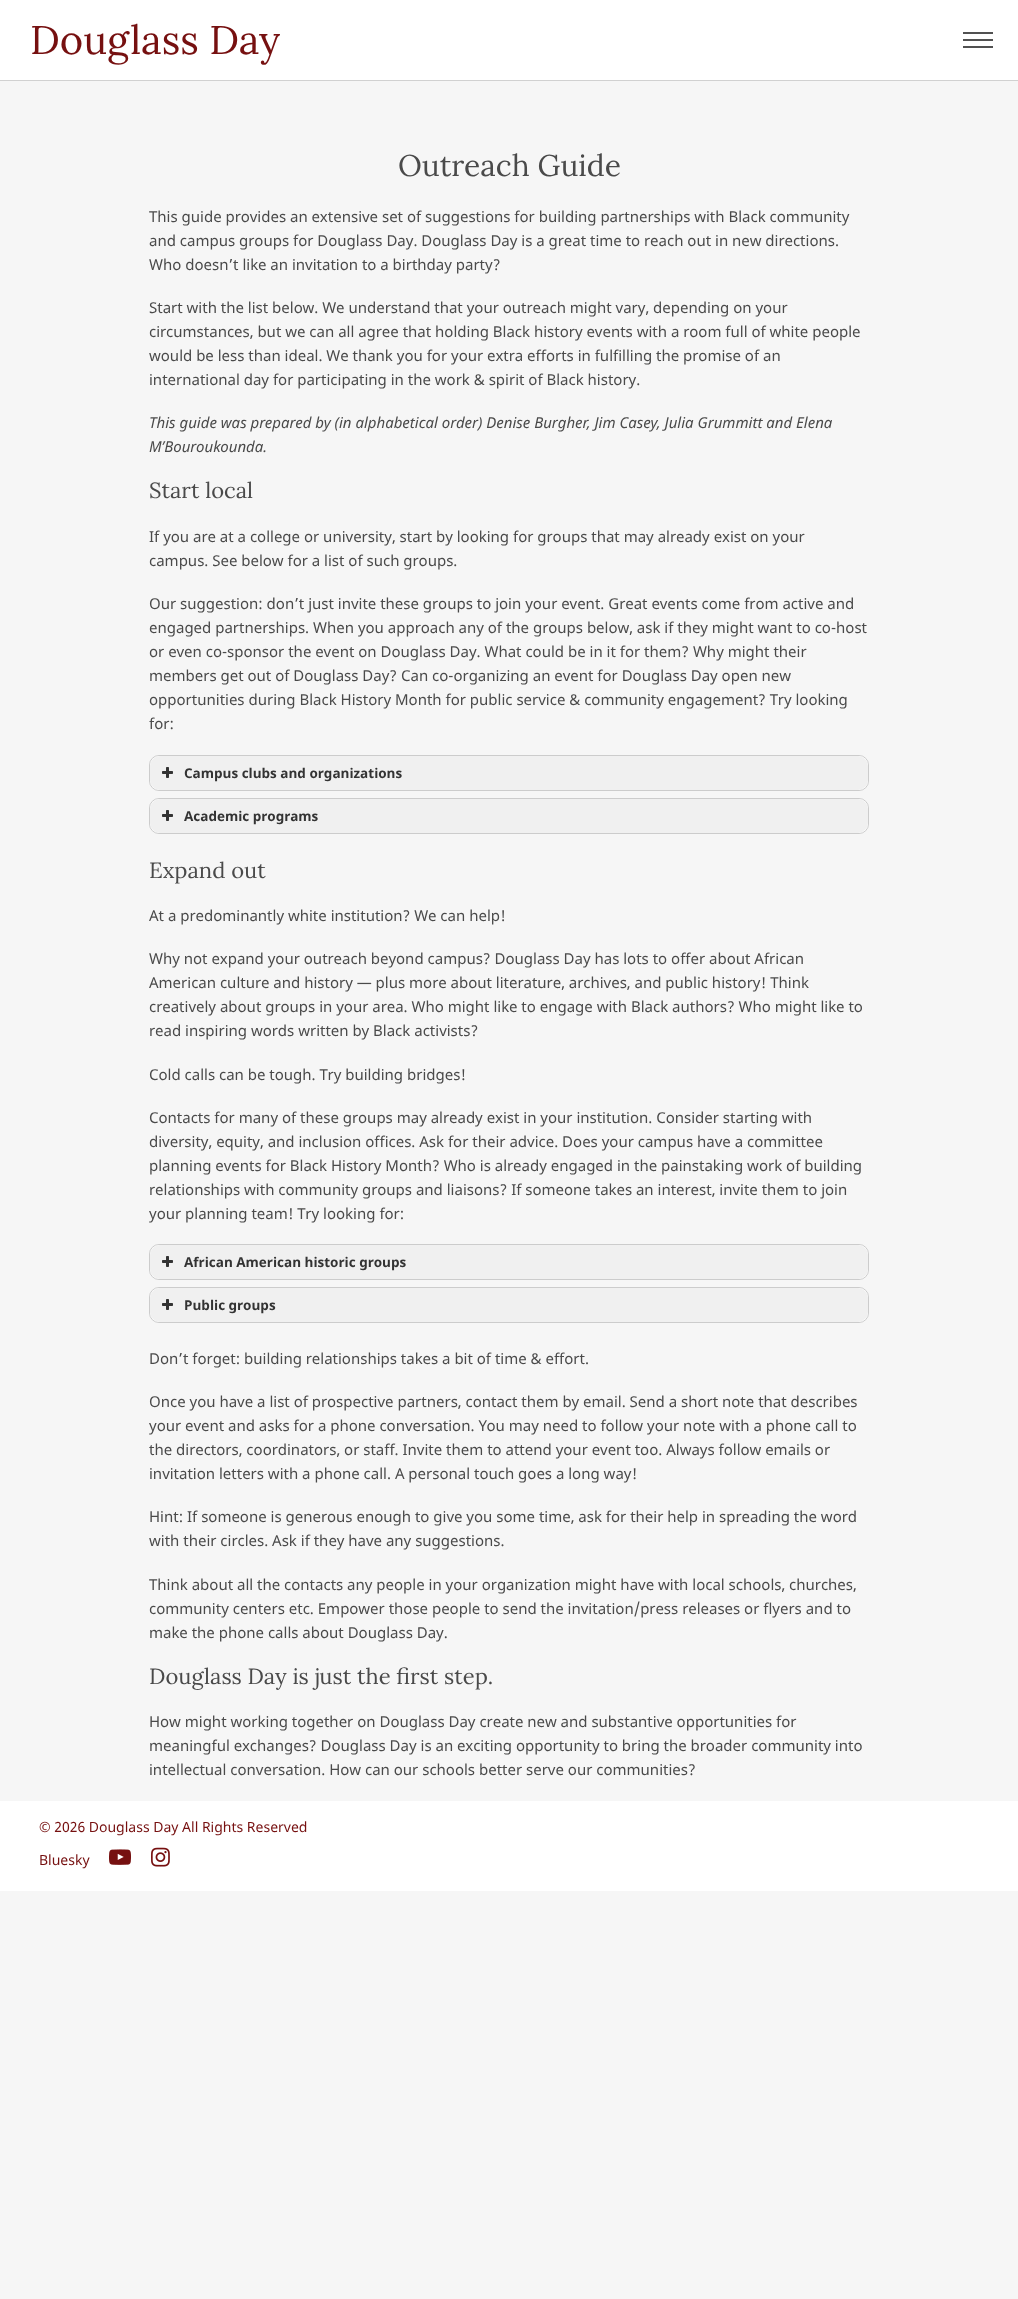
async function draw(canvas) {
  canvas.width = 1018
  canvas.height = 2299
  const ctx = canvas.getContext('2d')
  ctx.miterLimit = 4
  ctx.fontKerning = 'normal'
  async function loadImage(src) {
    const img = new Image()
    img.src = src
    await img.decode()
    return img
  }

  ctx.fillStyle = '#f6f6f6'
  ctx.fillRect(0, 0, 1018, 2299)
  ctx.fillStyle = '#00000026'
  ctx.filter = 'blur(0.5px)'
  ctx.beginPath()
  ctx.rect(0, 1, 1018, 80)
  ctx.fill()
  ctx.filter = 'none'
  ctx.fillStyle = '#fff'
  ctx.fillRect(0, 0, 1018, 80)
  ctx.font = '40px Lora'
  ctx.fillStyle = '#761010'
  ctx.fillText('Douglass Day', 30, 54)
  ctx.fillStyle = '#515151'
  ctx.fillRect(963, 32, 30, 2)
  ctx.fillRect(963, 39, 30, 2)
  ctx.fillRect(963, 46, 30, 2)
  ctx.font = '30px Lora'
  ctx.fillStyle = '#4a4a4a'
  ctx.fillText('Outreach Guide', 398, 176)
  ctx.font = '15px Noto Sans'
  ctx.fillText('This guide provides an extensive set of suggestions for building partnerships with Black community', 149, 222)
  ctx.fillText('and campus groups for Douglass Day. Douglass Day is a great time to reach out in new directions.', 149, 246)
  ctx.fillText('Who doesn’t like an invitation to a birthday party?', 149, 270)
  ctx.fillText('Start with the list below. We understand that your outreach might vary, depending on your', 149, 313)
  ctx.fillText('circumstances, but we can all agree that holding Black history events with a room full of white people', 149, 337)
  ctx.fillText('would be less than ideal. We thank you for your extra efforts in fulfilling the promise of an', 149, 361)
  ctx.fillText('international day for participating in the work & spirit of Black history.', 149, 385)
  ctx.font = 'italic 15px Noto Sans'
  ctx.fillText('This guide was prepared by (in alphabetical order) Denise Burgher, Jim Casey, Julia Grummitt and Elena', 149, 428)
  ctx.fillText('M’Bouroukounda.', 149, 452)
  ctx.font = '22px Lora'
  ctx.fillText('Start local', 149, 498)
  ctx.font = '15px Noto Sans'
  ctx.fillText('If you are at a college or university, start by looking for groups that may already exist on your', 149, 542)
  ctx.fillText('campus. See below for a list of such groups.', 149, 566)
  ctx.fillText('Our suggestion: don’t just invite these groups to join your event. Great events come from active and', 149, 609)
  ctx.fillText('engaged partnerships. When you approach any of the groups below, ask if they might want to co-host', 149, 633)
  ctx.fillText('or even co-sponsor the event on Douglass Day. What could be in it for them? Why might their', 149, 657)
  ctx.fillText('members get out of Douglass Day? Can co-organizing an event for Douglass Day open new', 149, 681)
  ctx.fillText('opportunities during Black History Month for public service & community engagement? Try looking', 149, 705)
  ctx.fillText('for:', 149, 729)
  ctx.fillStyle = '#fff'
  ctx.beginPath()
  ctx.roundRect(149.5, 755.5, 719, 35, 9.5)
  ctx.fill()
  ctx.strokeStyle = '#ccc'
  ctx.stroke()
  ctx.fillStyle = '#f0f0f0'
  ctx.beginPath()
  ctx.roundRect(150, 756, 718, 34, 10)
  ctx.fill()
  ctx.drawImage(await loadImage('image0.png'), 162, 767, 11, 11)
  ctx.font = 'bold 13.5px Noto Sans'
  ctx.fillStyle = '#333'
  ctx.fillText('Campus clubs and organizations', 184, 778)
  ctx.fillStyle = '#fff'
  ctx.beginPath()
  ctx.roundRect(149.5, 798.5, 719, 35, 9.5)
  ctx.fill()
  ctx.stroke()
  ctx.fillStyle = '#f0f0f0'
  ctx.beginPath()
  ctx.roundRect(150, 799, 718, 34, 10)
  ctx.fill()
  ctx.drawImage(await loadImage('image0.png'), 162, 810, 11, 11)
  ctx.fillStyle = '#333'
  ctx.fillText('Academic programs', 184, 821)
  ctx.font = '22px Lora'
  ctx.fillStyle = '#4a4a4a'
  ctx.fillText('Expand out', 149, 878)
  ctx.font = '15px Noto Sans'
  ctx.fillText('At a predominantly white institution? We can help!', 149, 921)
  ctx.fillText('Why not expand your outreach beyond campus? Douglass Day has lots to offer about African', 149, 964)
  ctx.fillText('American culture and history — plus more about literature, archives, and public history! Think', 149, 988)
  ctx.fillText('creatively about groups in your area. Who might like to engage with Black authors? Who might like to', 149, 1012)
  ctx.fillText('read inspiring words written by Black activists?', 149, 1036)
  ctx.fillText('Cold calls can be tough. Try building bridges!', 149, 1080)
  ctx.fillText('Contacts for many of these groups may already exist in your institution. Consider starting with', 149, 1123)
  ctx.fillText('diversity, equity, and inclusion offices. Ask for their advice. Does your campus have a committee', 149, 1147)
  ctx.fillText('planning events for Black History Month? Who is already engaged in the painstaking work of building', 149, 1171)
  ctx.fillText('relationships with community groups and liaisons? If someone takes an interest, invite them to join', 149, 1195)
  ctx.fillText('your planning team! Try looking for:', 149, 1219)
  ctx.fillStyle = '#fff'
  ctx.beginPath()
  ctx.roundRect(149.5, 1244.5, 719, 35, 9.5)
  ctx.fill()
  ctx.stroke()
  ctx.fillStyle = '#f0f0f0'
  ctx.beginPath()
  ctx.roundRect(150, 1245, 718, 34, 10)
  ctx.fill()
  ctx.drawImage(await loadImage('image0.png'), 162, 1256, 11, 11)
  ctx.font = 'bold 13.5px Noto Sans'
  ctx.fillStyle = '#333'
  ctx.fillText('African American historic groups', 184, 1267)
  ctx.fillStyle = '#fff'
  ctx.beginPath()
  ctx.roundRect(149.5, 1287.5, 719, 35, 9.5)
  ctx.fill()
  ctx.stroke()
  ctx.fillStyle = '#f0f0f0'
  ctx.beginPath()
  ctx.roundRect(150, 1288, 718, 34, 10)
  ctx.fill()
  ctx.drawImage(await loadImage('image0.png'), 162, 1299, 11, 11)
  ctx.fillStyle = '#333'
  ctx.fillText('Public groups', 184, 1310)
  ctx.font = '15px Noto Sans'
  ctx.fillStyle = '#4a4a4a'
  ctx.fillText('Don’t forget: building relationships takes a bit of time & effort.', 149, 1364)
  ctx.fillText('Once you have a list of prospective partners, contact them by email. Send a short note that describes', 149, 1407)
  ctx.fillText('your event and asks for a phone conversation. You may need to follow your note with a phone call to', 149, 1431)
  ctx.fillText('the directors, coordinators, or staff. Invite them to attend your event too. Always follow emails or', 149, 1455)
  ctx.fillText('invitation letters with a phone call. A personal touch goes a long way!', 149, 1479)
  ctx.fillText('Hint: If someone is generous enough to give you some time, ask for their help in spreading the word', 149, 1522)
  ctx.fillText('with their circles. Ask if they have any suggestions.', 149, 1546)
  ctx.fillText('Think about all the contacts any people in your organization might have with local schools, churches,', 149, 1590)
  ctx.fillText('community centers etc. Empower those people to send the invitation/press releases or flyers and to', 149, 1614)
  ctx.fillText('make the phone calls about Douglass Day.', 149, 1638)
  ctx.font = '22px Lora'
  ctx.fillText('Douglass Day is just the first step.', 149, 1684)
  ctx.font = '15px Noto Sans'
  ctx.fillText('How might working together on Douglass Day create new and substantive opportunities for', 149, 1727)
  ctx.fillText('meaningful exchanges? Douglass Day is an exciting opportunity to bring the broader community into', 149, 1751)
  ctx.fillText('intellectual conversation. How can our schools better serve our communities?', 149, 1775)
  ctx.fillStyle = '#fff'
  ctx.fillRect(0, 1801, 1018, 90)
  ctx.font = '14px Noto Sans'
  ctx.fillStyle = '#761010'
  ctx.fillText('© 2026 Douglass Day All Rights Reserved', 39, 1832)
  ctx.fillText('Bluesky', 39, 1865)
  ctx.drawImage(await loadImage('image1.png'), 109, 1849, 22, 16)
  ctx.drawImage(await loadImage('image2.png'), 151, 1847, 19, 20)
}

draw(document.querySelector('canvas'))
